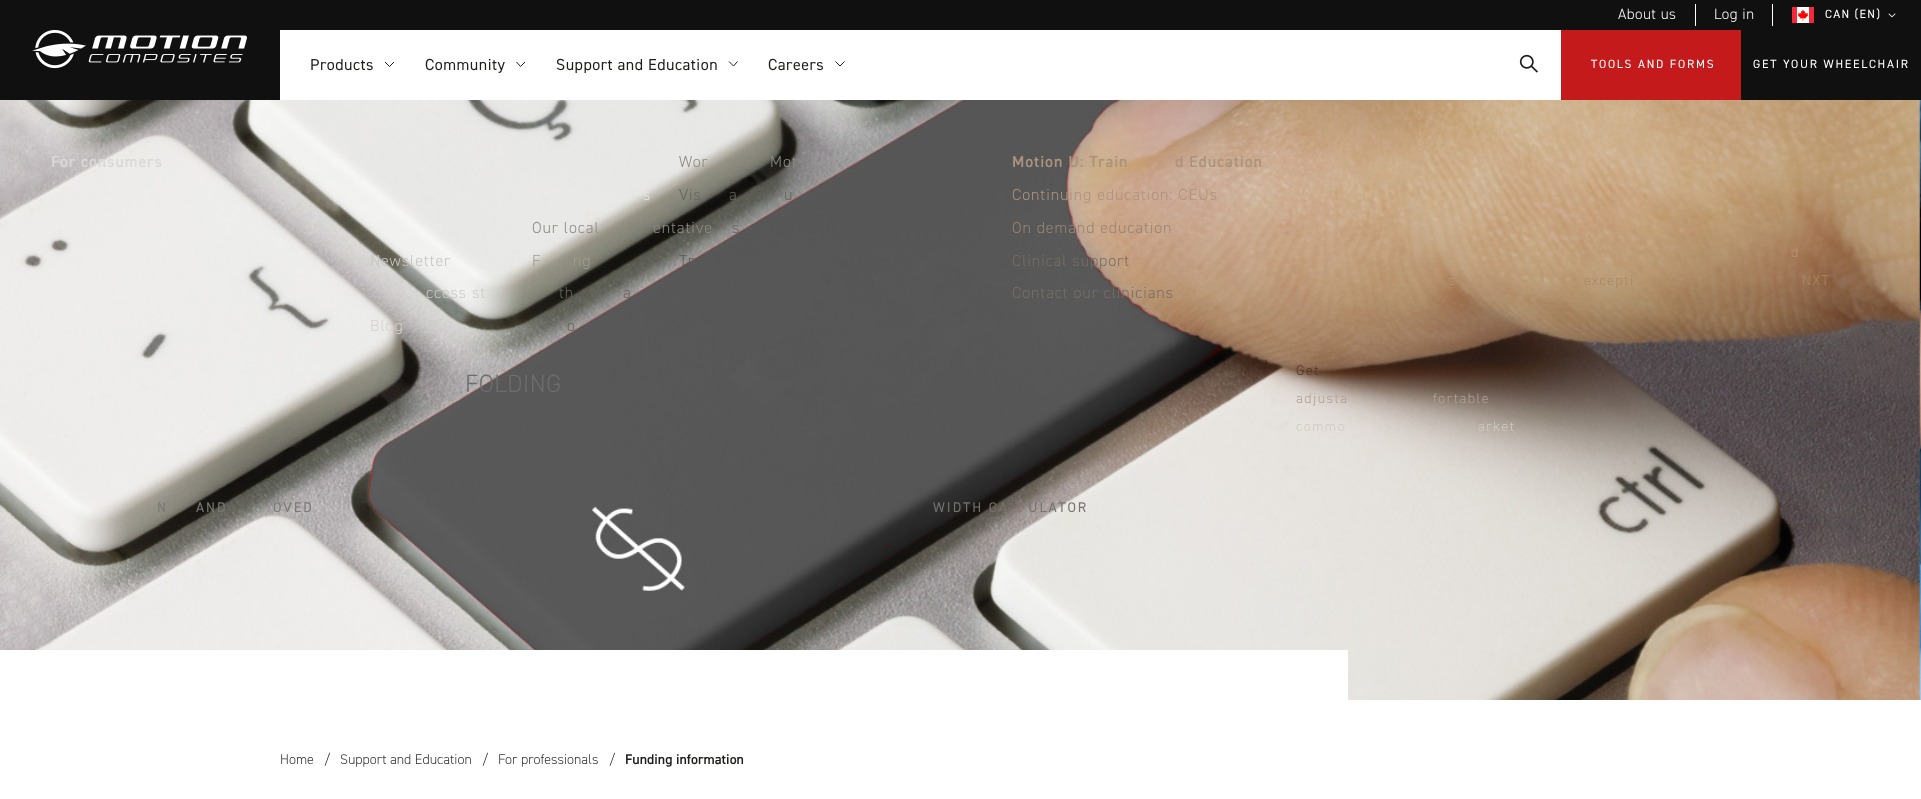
async function draw(canvas) {
  canvas.width = 1921
  canvas.height = 799
  const ctx = canvas.getContext('2d')
  ctx.miterLimit = 4
  ctx.fontKerning = 'normal'
  async function loadImage(src) {
    const img = new Image()
    img.src = src
    await img.decode()
    return img
  }

  ctx.fillStyle = '#fff'
  ctx.fillRect(0, 0, 1921, 799)
  ctx.fillStyle = '#101010'
  ctx.fillRect(280, 0, 1641, 30)
  ctx.fillStyle = '#fff'
  ctx.fillRect(1695, 4, 1, 22)
  ctx.letterSpacing = '0.5px'
  ctx.font = '300 15px "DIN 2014"'
  ctx.fillText('About us', 1618, 19)
  ctx.fillRect(1772, 4, 1, 22)
  ctx.fillText('Log in', 1714, 19)
  ctx.drawImage(await loadImage('image0.png'), 1792, 7, 22, 16)
  ctx.letterSpacing = '1.25px'
  ctx.font = '12px "DIN 2014"'
  ctx.fillText('CAN (EN)', 1825, 18)
  ctx.drawImage(await loadImage('image1.png'), 1888, 13, 8, 5)
  ctx.fillStyle = '#101010'
  ctx.fillRect(0, 0, 280, 100)
  ctx.drawImage(await loadImage('image2.png'), 32, 30, 215, 39)
  ctx.drawImage(await loadImage('image3.png'), 1519, 54, 19, 19)
  ctx.letterSpacing = '0.5px'
  ctx.font = '16px "DIN 2014"'
  ctx.fillStyle = '#1d1d1b'
  ctx.fillText('Support and Education', 556, 70)
  ctx.beginPath()
  ctx.moveTo(737.5, 61.5)
  ctx.lineTo(733.5, 66)
  ctx.lineTo(729, 61.5)
  ctx.strokeStyle = '#1d1d1b'
  ctx.stroke()
  ctx.drawImage(await loadImage('image4.png'), 0, 100, 1921, 600)
  ctx.letterSpacing = '0.9px'
  ctx.font = '600 16px "DIN 2014"'
  ctx.fillStyle = '#dbd9d8'
  ctx.fillText('For consumers', 51, 167)
  ctx.font = '300 16px "DIN 2014"'
  ctx.fillStyle = '#e6e6e3'
  ctx.fillText('s', 643, 200)
  ctx.fillStyle = '#8c8b84'
  ctx.fillText('Our local', 532, 233)
  ctx.fillText('entative', 653, 233)
  ctx.fillStyle = '#9f9d91'
  ctx.fillText('F', 532, 266)
  ctx.fillText('ng', 573, 266)
  ctx.fillStyle = '#66655e'
  ctx.fillText('th', 559, 298)
  ctx.fillText('a', 623, 298)
  ctx.fillText('o', 567, 331)
  ctx.font = '600 16px "DIN 2014"'
  ctx.fillStyle = '#ac937d'
  ctx.fillText('Motion U: Train', 1012, 167)
  ctx.fillText('d Education', 1175, 167)
  ctx.font = '300 16px "DIN 2014"'
  ctx.fillText('Continuing education: CEUs', 1012, 200)
  ctx.fillStyle = '#998475'
  ctx.fillText('On demand education', 1012, 233)
  ctx.fillStyle = '#786e65'
  ctx.fillText('Clinical support', 1012, 266)
  ctx.fillText('Contact our clinicians', 1012, 298)
  ctx.letterSpacing = '0.5px'
  ctx.font = '16px "DIN 2014"'
  ctx.fillStyle = '#1d1d1b'
  ctx.fillText('Products', 310, 70)
  ctx.beginPath()
  ctx.moveTo(394, 62)
  ctx.lineTo(389.5, 66.5)
  ctx.lineTo(385, 62)
  ctx.stroke()
  ctx.font = '300 25px "DIN 2014"'
  ctx.fillStyle = '#6e6d6d'
  ctx.fillText('FOLDING', 465, 392)
  ctx.letterSpacing = '2px'
  ctx.font = '14px "DIN 2014"'
  ctx.fillStyle = '#7a7873'
  ctx.fillText('N', 157, 512)
  ctx.fillText('AND', 196, 512)
  ctx.fillText('OVED', 273, 512)
  ctx.fillStyle = '#76726f'
  ctx.fillText('WIDTH CA', 933, 512)
  ctx.fillText('ULATOR', 1028, 512)
  ctx.letterSpacing = '1.5px'
  ctx.font = '300 14px "DIN 2014"'
  ctx.fillStyle = '#b99672'
  ctx.fillText('s', 1448, 285)
  ctx.fillText('d', 1791, 257)
  ctx.fillStyle = '#aa8763'
  ctx.fillText('excepti', 1584, 285)
  ctx.fillText('NXT', 1802, 285)
  ctx.fillStyle = '#533626'
  ctx.fillText('Get', 1296, 375)
  ctx.fillStyle = '#aea198'
  ctx.fillText('adjusta', 1296, 403)
  ctx.fillText('fortable', 1433, 403)
  ctx.fillStyle = '#d1cac3'
  ctx.fillText('commo', 1296, 431)
  ctx.fillText('arket', 1478, 431)
  ctx.letterSpacing = '0.5px'
  ctx.font = '16px "DIN 2014"'
  ctx.fillStyle = '#1d1d1b'
  ctx.fillText('Community', 425, 70)
  ctx.beginPath()
  ctx.moveTo(525, 62)
  ctx.lineTo(520.5, 66.5)
  ctx.lineTo(516.5, 62)
  ctx.stroke()
  ctx.letterSpacing = '0.9px'
  ctx.font = '300 16px "DIN 2014"'
  ctx.fillStyle = '#c6c5c0'
  ctx.fillText('Newsletter', 370, 266)
  ctx.fillStyle = '#cacac6'
  ctx.fillText('ccess st', 426, 298)
  ctx.fillStyle = '#d3d1cd'
  ctx.fillText('Blog', 370, 331)
  ctx.letterSpacing = '0.5px'
  ctx.font = '16px "DIN 2014"'
  ctx.fillStyle = '#1d1d1b'
  ctx.fillText('Careers', 768, 70)
  ctx.beginPath()
  ctx.moveTo(844.5, 61.5)
  ctx.lineTo(840, 66)
  ctx.lineTo(835.5, 61.5)
  ctx.stroke()
  ctx.letterSpacing = '0.9px'
  ctx.font = '300 16px "DIN 2014"'
  ctx.fillStyle = '#8c8b84'
  ctx.fillText('Wor', 679, 167)
  ctx.fillText('Mot', 770, 167)
  ctx.fillStyle = '#66655e'
  ctx.fillText('Vis', 679, 200)
  ctx.fillText('a', 729, 200)
  ctx.fillText('u', 784, 200)
  ctx.fillText('s', 732, 233)
  ctx.fillStyle = '#5a5a59'
  ctx.fillText('Tr', 679, 266)
  ctx.fillStyle = '#c51a1b'
  ctx.fillRect(1561, 30, 180, 70)
  ctx.letterSpacing = '1.75px'
  ctx.font = '12px "DIN 2014"'
  ctx.fillStyle = '#fff'
  ctx.fillText('TOOLS AND FORMS', 1591, 68)
  ctx.fillStyle = '#101010'
  ctx.fillRect(1741, 30, 180, 70)
  ctx.fillStyle = '#fff'
  ctx.fillText('GET YOUR WHEELCHAIR', 1753, 68)
  ctx.fillRect(0, 650, 1348, 50)
  ctx.letterSpacing = '0px'
  ctx.font = '300 14px "DIN 2014"'
  ctx.fillStyle = '#333'
  ctx.fillText('Home', 280, 764)
  ctx.fillStyle = '#1d1d1b'
  ctx.fillText('/', 324, 764)
  ctx.fillStyle = '#333'
  ctx.fillText('Support and Education', 340, 764)
  ctx.fillStyle = '#1d1d1b'
  ctx.fillText('/', 482, 764)
  ctx.fillStyle = '#333'
  ctx.fillText('For professionals', 498, 764)
  ctx.fillStyle = '#1d1d1b'
  ctx.fillText('/', 609, 764)
  ctx.font = '600 14px "DIN 2014"'
  ctx.fillText('Funding information', 625, 764)
}

draw(document.querySelector('canvas'))
